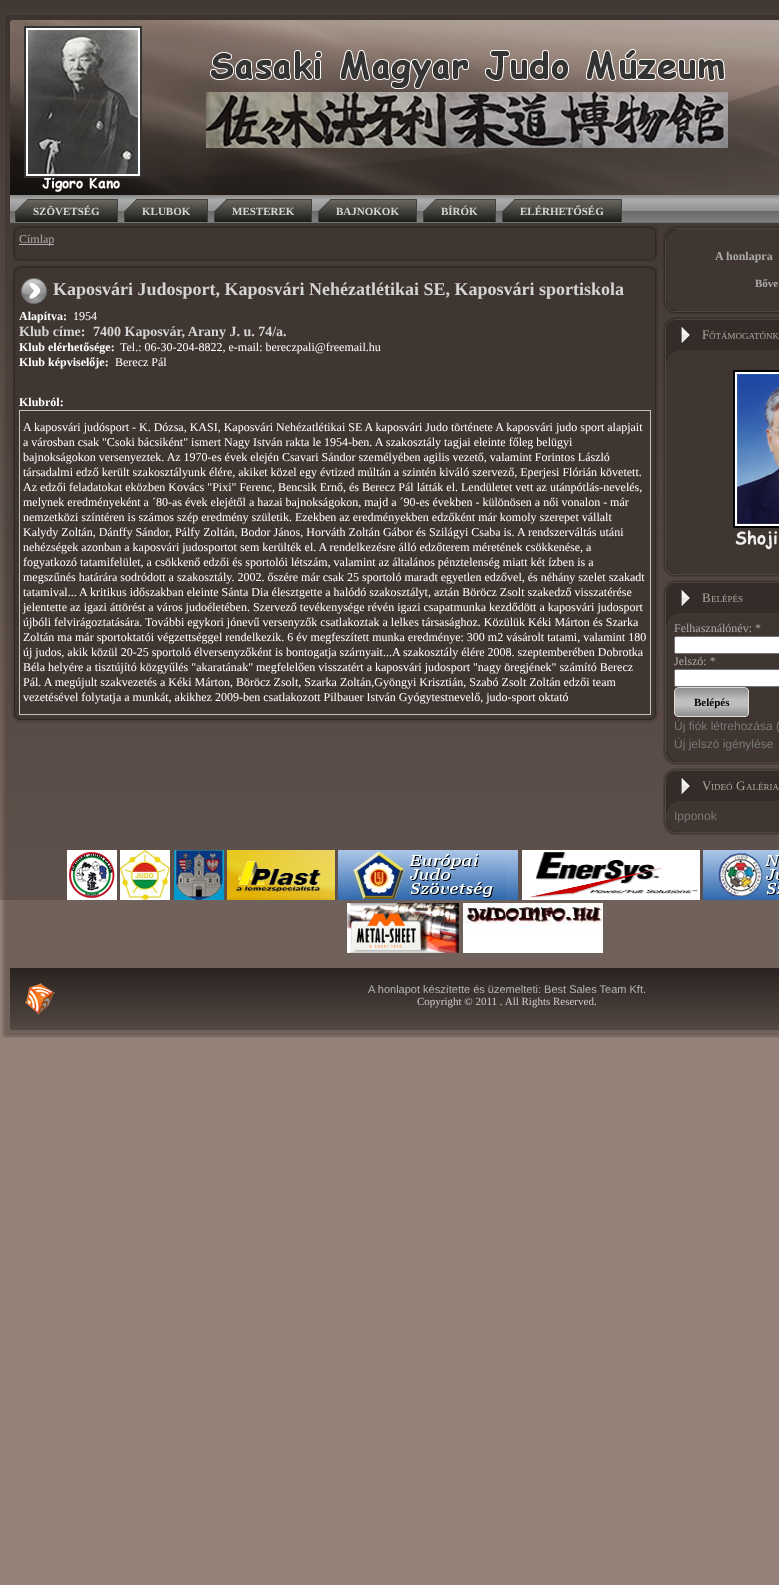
async function draw(canvas) {
  canvas.width = 779
  canvas.height = 1585
  const ctx = canvas.getContext('2d')
  ctx.miterLimit = 4
  ctx.fontKerning = 'normal'
  async function loadImage(src) {
    const img = new Image()
    img.src = src
    await img.decode()
    return img
  }

  ctx.fillStyle = '#938076'
  ctx.fillRect(0, 0, 779, 1585)
  ctx.fillStyle = '#70615a'
  ctx.fillRect(15, 900, 764, 125)
  ctx.drawImage(await loadImage('image0.png'), 0, 0, 779, 900)
  ctx.drawImage(await loadImage('image1.png'), 3, 13, 12, 12)
  ctx.drawImage(await loadImage('image2.png'), 15, 13, 764, 7)
  ctx.drawImage(await loadImage('image3.png'), 2, 25, 13, 1000)
  ctx.drawImage(await loadImage('image4.png'), 10, 20, 769, 175)
  ctx.drawImage(await loadImage('image5.png'), 14, 22, 765, 171)
  ctx.drawImage(await loadImage('image6.png'), 10, 195, 769, 28)
  ctx.drawImage(await loadImage('image7.png'), 15, 199, 90, 23)
  ctx.drawImage(await loadImage('image8.png'), 105, 199, 13, 23)
  ctx.font = 'bold 11px Liberation Serif'
  ctx.fillStyle = '#d4d4d4'
  ctx.fillText('SZÖVETSÉG', 33, 215)
  ctx.drawImage(await loadImage('image9.png'), 124, 199, 71, 23)
  ctx.drawImage(await loadImage('image8.png'), 195, 199, 13, 23)
  ctx.fillText('KLUBOK', 142, 215)
  ctx.drawImage(await loadImage('image10.png'), 214, 199, 85, 23)
  ctx.drawImage(await loadImage('image8.png'), 299, 199, 13, 23)
  ctx.fillText('MESTEREK', 232, 215)
  ctx.drawImage(await loadImage('image11.png'), 318, 199, 86, 23)
  ctx.drawImage(await loadImage('image8.png'), 404, 199, 13, 23)
  ctx.fillText('BAJNOKOK', 336, 215)
  ctx.drawImage(await loadImage('image12.png'), 423, 199, 60, 23)
  ctx.drawImage(await loadImage('image8.png'), 483, 199, 13, 23)
  ctx.fillText('BÍRÓK', 441, 215)
  ctx.drawImage(await loadImage('image13.png'), 502, 199, 107, 23)
  ctx.drawImage(await loadImage('image8.png'), 609, 199, 13, 23)
  ctx.fillText('ELÉRHETŐSÉG', 520, 215)
  ctx.drawImage(await loadImage('image14.png'), 12, 225, 18, 18)
  ctx.drawImage(await loadImage('image15.png'), 30, 225, 610, 18)
  ctx.drawImage(await loadImage('image16.png'), 640, 225, 18, 18)
  ctx.drawImage(await loadImage('image19.png'), 12, 244, 18, 18)
  ctx.drawImage(await loadImage('image20.png'), 30, 244, 610, 18)
  ctx.fillStyle = '#ababab'
  ctx.fillRect(19, 244, 35, 1)
  ctx.drawImage(await loadImage('image17.png'), 12, 243, 18, 1)
  ctx.fillStyle = '#3f3631'
  ctx.fillRect(30, 243, 610, 1)
  ctx.font = '12px Liberation Serif'
  ctx.fillStyle = '#ababab'
  ctx.fillText('Címlap', 19, 243)
  ctx.drawImage(await loadImage('image18.png'), 640, 243, 18, 1)
  ctx.drawImage(await loadImage('image21.png'), 640, 244, 18, 18)
  ctx.drawImage(await loadImage('image22.png'), 12, 265, 18, 18)
  ctx.drawImage(await loadImage('image23.png'), 30, 265, 610, 18)
  ctx.drawImage(await loadImage('image24.png'), 640, 265, 18, 18)
  ctx.drawImage(await loadImage('image26.png'), 11, 283, 19, 421)
  ctx.fillStyle = '#3f3631'
  ctx.fillRect(30, 283, 610, 421)
  ctx.drawImage(await loadImage('image25.png'), 21, 278, 26, 26)
  ctx.font = 'bold 18px Liberation Serif'
  ctx.fillStyle = '#d4d4d4'
  ctx.fillText('Kaposvári Judosport, Kaposvári Nehézatlétikai SE, Kaposvári sportiskola', 53, 295)
  ctx.font = 'bold 12px Liberation Serif'
  ctx.fillStyle = '#fff'
  ctx.fillText('Alapítva:', 19, 320)
  ctx.font = '12px Liberation Serif'
  ctx.fillText('1954', 73, 320)
  ctx.font = 'bold 14px Liberation Serif'
  ctx.fillStyle = '#d4d4d4'
  ctx.fillText('Klub címe:', 19, 336)
  ctx.fillText('7400 Kaposvár, Arany J. u. 74/a.', 93, 336)
  ctx.font = 'bold 12px Liberation Serif'
  ctx.fillStyle = '#fff'
  ctx.fillText('Klub elérhetősége:', 19, 351)
  ctx.font = '12px Liberation Serif'
  ctx.fillText('Tel.: 06-30-204-8822, e-mail: bereczpali@freemail.hu', 120, 351)
  ctx.font = 'bold 12px Liberation Serif'
  ctx.fillText('Klub képviselője:', 19, 366)
  ctx.font = '12px Liberation Serif'
  ctx.fillText('Berecz Pál', 115, 366)
  ctx.font = 'bold 12px Liberation Serif'
  ctx.fillText('Klubról:', 19, 406)
  ctx.drawImage(await loadImage('image27.png'), 640, 283, 19, 421)
  ctx.drawImage(await loadImage('image28.png'), 11, 704, 19, 19)
  ctx.drawImage(await loadImage('image29.png'), 30, 704, 610, 19)
  ctx.drawImage(await loadImage('image30.png'), 640, 704, 19, 19)
  ctx.strokeStyle = '#c0c0c0'
  ctx.strokeRect(19.5, 410.5, 631, 304)
  ctx.font = '12px Liberation Serif'
  ctx.fillText('A kaposvári judósport - K. Dózsa, KASI, Kaposvári Nehézatlétikai SE A kaposvári Judo története A kaposvári judo sport alapjait', 23, 431)
  ctx.fillText('a városban csak "Csoki bácsiként" ismert Nagy István rakta le 1954-ben. A szakosztály tagjai eleinte főleg belügyi', 23, 446)
  ctx.fillText('bajnokságokon versenyeztek. Az 1970-es évek elején Csavari Sándor személyében agilis vezető, valamint Forintos László', 23, 461)
  ctx.fillText('társadalmi edző került szakosztályunk élére, akiket közel egy évtized múltán a szintén kiváló szervező, Eperjesi Flórián követett.', 23, 476)
  ctx.fillText('Az edzői feladatokat eközben Kovács "Pixi" Ferenc, Bencsik Ernő, és Berecz Pál látták el. Lendületet vett az utánpótlás-nevelés,', 23, 491)
  ctx.fillText('melynek eredményeként a ´80-as évek elejétől a hazai bajnokságokon, majd a ´90-es években - különösen a női vonalon - már', 23, 506)
  ctx.fillText('nemzetközi színtéren is számos szép eredmény születik. Ezekben az eredményekben edzőként már komoly szerepet vállalt', 23, 521)
  ctx.fillText('Kalydy Zoltán, Dánffy Sándor, Pálfy Zoltán, Bodor János, Horváth Zoltán Gábor és Szilágyi Csaba is. A rendszerváltás utáni', 23, 536)
  ctx.fillText('nehézségek azonban a kaposvári judosportot sem kerülték el. A rendelkezésre álló edzőterem méretének csökkenése, a', 23, 551)
  ctx.fillText('fogyatkozó tatamifelület, a csökkenő edzői és sportolói létszám, valamint az általános pénztelenség miatt két ízben is a', 23, 566)
  ctx.fillText('megszűnés határára sodródott a szakosztály. 2002. őszére már csak 25 sportoló maradt egyetlen edzővel, és néhány szelet szakadt', 23, 581)
  ctx.fillText('tatamival... A kritikus időszakban eleinte Sánta Dia élesztgette a halódó szakosztályt, aztán Böröcz Zsolt szakedző visszatérése', 23, 596)
  ctx.fillText('jelentette az igazi áttörést a város judoéletében. Szervező tevékenysége révén igazi csapatmunka kezdődött a kaposvári judosport', 23, 611)
  ctx.fillText('újbóli felvirágoztatására. További egykori jónevű versenyzők csatlakoztak a lelkes társasághoz. Közülük Kéki Márton és Szarka', 23, 626)
  ctx.fillText('Zoltán ma már sportoktatói végzettséggel rendelkezik. 6 év megfeszített munka eredménye: 300 m2 vásárolt tatami, valamint 180', 23, 641)
  ctx.fillText('új judos, akik közül 20-25 sportoló élversenyzőként is bontogatja szárnyait...A szakosztály élére 2008. szeptemberében Dobrotka', 23, 656)
  ctx.fillText('Béla helyére a tisztújító közgyűlés "akaratának" megfelelően visszatért a kaposvári judosport "nagy öregjének" számító Berecz', 23, 671)
  ctx.fillText('Pál. A megújult szakvezetés a Kéki Márton, Böröcz Zsolt, Szarka Zoltán,Gyöngyi Krisztián, Szabó Zsolt Zoltán edzői team', 23, 686)
  ctx.fillText('vezetésével folytatja a munkát, akikhez 2009-ben csatlakozott Pilbauer István Gyógytestnevelő, judo-sport oktató', 23, 701)
  ctx.drawImage(await loadImage('image31.png'), 663, 226, 19, 19)
  ctx.drawImage(await loadImage('image32.png'), 682, 226, 97, 3)
  ctx.drawImage(await loadImage('image33.png'), 663, 245, 3, 50)
  ctx.drawImage(await loadImage('image34.png'), 666, 229, 11, 11)
  ctx.fillStyle = '#3f3631'
  ctx.fillRect(677, 229, 102, 11)
  ctx.drawImage(await loadImage('image36.png'), 663, 295, 19, 19)
  ctx.fillRect(666, 240, 113, 60)
  ctx.font = 'bold 12px Liberation Serif'
  ctx.fillStyle = '#ababab'
  ctx.fillText('A honlapra', 715, 260)
  ctx.font = 'bold 11px Liberation Serif'
  ctx.fillText('Bőve', 755, 287)
  ctx.drawImage(await loadImage('image35.png'), 666, 300, 11, 11)
  ctx.fillStyle = '#3f3631'
  ctx.fillRect(677, 300, 102, 11)
  ctx.drawImage(await loadImage('image37.png'), 682, 311, 97, 3)
  ctx.drawImage(await loadImage('image38.png'), 663, 317, 19, 19)
  ctx.drawImage(await loadImage('image39.png'), 682, 317, 97, 19)
  ctx.drawImage(await loadImage('image44.png'), 663, 336, 19, 222)
  ctx.fillStyle = '#332c28'
  ctx.fillRect(682, 336, 97, 14)
  ctx.drawImage(await loadImage('image40.png'), 681, 327, 9, 16)
  ctx.font = '13px Liberation Serif'
  ctx.fillStyle = '#a8a69f'
  ctx.fillText('F', 702, 339)
  ctx.font = '9px Liberation Serif'
  ctx.fillText('ŐTÁMOGATÓNK', 709, 339)
  ctx.drawImage(await loadImage('image41.png'), 666, 350, 11, 11)
  ctx.fillStyle = '#3f3631'
  ctx.fillRect(677, 350, 102, 11)
  ctx.drawImage(await loadImage('image45.png'), 663, 558, 19, 19)
  ctx.fillRect(666, 361, 113, 202)
  ctx.drawImage(await loadImage('image42.png'), 733, 370, 46, 180)
  ctx.drawImage(await loadImage('image43.png'), 666, 563, 11, 11)
  ctx.fillRect(677, 563, 102, 11)
  ctx.drawImage(await loadImage('image46.png'), 682, 574, 97, 3)
  ctx.drawImage(await loadImage('image47.png'), 663, 580, 19, 19)
  ctx.drawImage(await loadImage('image48.png'), 682, 580, 97, 19)
  ctx.drawImage(await loadImage('image49.png'), 663, 599, 19, 147)
  ctx.fillStyle = '#332c28'
  ctx.fillRect(682, 599, 97, 14)
  ctx.drawImage(await loadImage('image40.png'), 681, 590, 9, 16)
  ctx.font = '13px Liberation Serif'
  ctx.fillStyle = '#a8a69f'
  ctx.fillText('B', 702, 602)
  ctx.font = '9px Liberation Serif'
  ctx.fillText('ELÉPÉS', 711, 602)
  ctx.drawImage(await loadImage('image41.png'), 666, 613, 11, 11)
  ctx.fillStyle = '#3f3631'
  ctx.fillRect(677, 613, 102, 11)
  ctx.drawImage(await loadImage('image53.png'), 663, 746, 19, 19)
  ctx.fillRect(666, 624, 113, 127)
  ctx.font = '12px Liberation Serif'
  ctx.fillStyle = '#ababab'
  ctx.fillText('Felhasználónév: *', 674, 632)
  ctx.fillStyle = '#fff'
  ctx.beginPath()
  ctx.roundRect(674.5, 636.5, 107, 17, 1.5)
  ctx.fill()
  ctx.strokeStyle = '#767676'
  ctx.stroke()
  ctx.fillStyle = '#ababab'
  ctx.fillText('Jelszó: *', 674, 665)
  ctx.fillStyle = '#fff'
  ctx.beginPath()
  ctx.roundRect(674.5, 669.5, 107, 17, 1.5)
  ctx.fill()
  ctx.stroke()
  ctx.drawImage(await loadImage('image50.png'), 674, 687, 70, 30)
  ctx.drawImage(await loadImage('image51.png'), 744, 687, 5, 30)
  ctx.font = 'bold 11px Liberation Serif'
  ctx.fillStyle = '#000'
  ctx.fillText('Belépés', 694, 706)
  ctx.font = '12px Liberation Sans'
  ctx.fillStyle = '#787878'
  ctx.fillText('Új fiók létrehozása (', 674, 730)
  ctx.fillText('Új jelszó igénylése', 674, 748)
  ctx.drawImage(await loadImage('image52.png'), 666, 751, 11, 11)
  ctx.fillStyle = '#3f3631'
  ctx.fillRect(677, 751, 102, 11)
  ctx.drawImage(await loadImage('image54.png'), 682, 762, 97, 3)
  ctx.drawImage(await loadImage('image55.png'), 663, 768, 19, 19)
  ctx.drawImage(await loadImage('image56.png'), 682, 768, 97, 19)
  ctx.drawImage(await loadImage('image57.png'), 663, 787, 19, 29)
  ctx.fillStyle = '#332c28'
  ctx.fillRect(682, 787, 97, 14)
  ctx.drawImage(await loadImage('image40.png'), 681, 778, 9, 16)
  ctx.font = '13px Liberation Serif'
  ctx.fillStyle = '#a8a69f'
  ctx.fillText('V', 702, 790)
  ctx.font = '9px Liberation Serif'
  ctx.fillText('IDEÓ', 711, 790)
  ctx.font = '13px Liberation Serif'
  ctx.fillText('G', 736, 790)
  ctx.font = '9px Liberation Serif'
  ctx.fillText('ALÉRIA', 746, 790)
  ctx.drawImage(await loadImage('image41.png'), 666, 801, 11, 11)
  ctx.fillStyle = '#3f3631'
  ctx.fillRect(677, 801, 102, 11)
  ctx.drawImage(await loadImage('image59.png'), 663, 816, 19, 19)
  ctx.fillRect(666, 812, 113, 9)
  ctx.drawImage(await loadImage('image58.png'), 666, 821, 11, 11)
  ctx.fillRect(677, 821, 102, 11)
  ctx.font = '12px Liberation Sans'
  ctx.fillStyle = '#787878'
  ctx.fillText('Ipponok', 674, 820)
  ctx.drawImage(await loadImage('image60.png'), 682, 832, 97, 3)
  ctx.drawImage(await loadImage('image61.png'), 67, 850, 50, 50)
  ctx.drawImage(await loadImage('image62.png'), 120, 850, 50, 50)
  ctx.drawImage(await loadImage('image63.png'), 174, 850, 50, 50)
  ctx.drawImage(await loadImage('image64.png'), 227, 850, 108, 50)
  ctx.drawImage(await loadImage('image65.png'), 338, 850, 180, 50)
  ctx.drawImage(await loadImage('image66.png'), 522, 850, 178, 50)
  ctx.drawImage(await loadImage('image67.png'), 703, 850, 76, 50)
  ctx.drawImage(await loadImage('image68.png'), 347, 903, 112, 50)
  ctx.drawImage(await loadImage('image69.png'), 463, 903, 140, 50)
  ctx.drawImage(await loadImage('image72.png'), 2, 1025, 13, 13)
  ctx.drawImage(await loadImage('image73.png'), 15, 1025, 764, 13)
  ctx.drawImage(await loadImage('image70.png'), 10, 968, 769, 62)
  ctx.drawImage(await loadImage('image71.png'), 25, 983, 30, 32)
  ctx.font = '11px Liberation Sans'
  ctx.fillStyle = '#b5b5b5'
  ctx.fillText('A honlapot készítette és üzemelteti: Best Sales Team Kft.', 368, 993)
  ctx.font = '11px Liberation Serif'
  ctx.fillStyle = '#ccc'
  ctx.fillText('Copyright © 2011 . All Rights Reserved.', 417, 1005)
}

draw(document.querySelector('canvas'))
